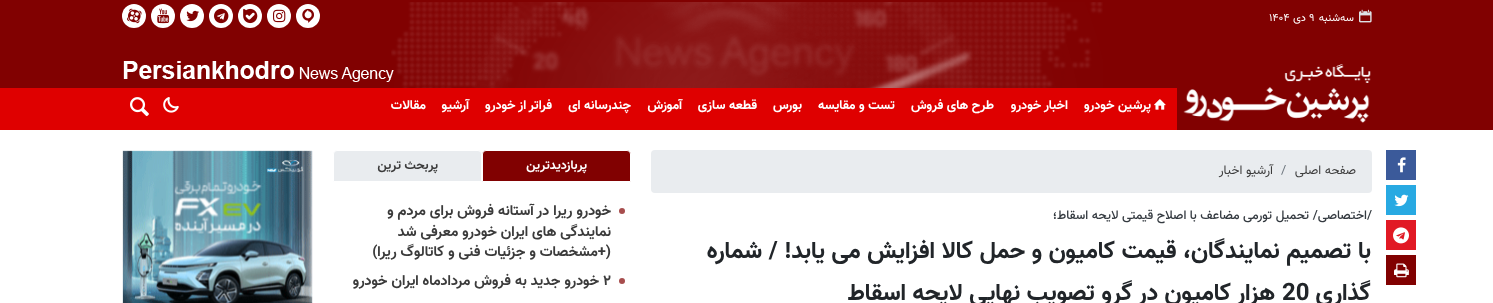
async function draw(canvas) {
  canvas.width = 1493
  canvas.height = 303
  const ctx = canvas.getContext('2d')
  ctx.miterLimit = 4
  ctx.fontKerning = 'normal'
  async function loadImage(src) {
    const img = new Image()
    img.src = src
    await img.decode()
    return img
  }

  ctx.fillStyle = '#fff'
  ctx.fillRect(0, 0, 1493, 303)
  ctx.fillStyle = '#810101'
  ctx.fillRect(0, 0, 1493, 130)
  ctx.drawImage(await loadImage('image0.png'), 391, 2, 712, 86)
  ctx.drawImage(await loadImage('image1.png'), 1359, 9, 13, 14)
  ctx.direction = 'rtl'
  ctx.font = '11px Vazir'
  ctx.fillStyle = '#fff'
  ctx.fillText('سه‌شنبه', 1354, 21)
  ctx.direction = 'ltr'
  ctx.fillText('۹', 1309, 21)
  ctx.direction = 'rtl'
  ctx.fillText('دی', 1306, 21)
  ctx.direction = 'ltr'
  ctx.fillText('۱۴۰۴', 1269, 21)
  ctx.beginPath()
  ctx.arc(308, 16, 12, 0, 2 * Math.PI)
  ctx.fill()
  ctx.drawImage(await loadImage('image2.png'), 302, 8, 12, 15)
  ctx.beginPath()
  ctx.arc(279, 16, 12, 0, 2 * Math.PI)
  ctx.fill()
  ctx.drawImage(await loadImage('image3.png'), 273, 9, 13, 14)
  ctx.beginPath()
  ctx.arc(250, 16, 12, 0, 2 * Math.PI)
  ctx.fill()
  ctx.drawImage(await loadImage('image4.png'), 243, 8, 15, 16)
  ctx.beginPath()
  ctx.arc(221, 16, 12, 0, 2 * Math.PI)
  ctx.fill()
  ctx.drawImage(await loadImage('image5.png'), 214, 8, 15, 16)
  ctx.beginPath()
  ctx.arc(192, 16, 12, 0, 2 * Math.PI)
  ctx.fill()
  ctx.drawImage(await loadImage('image6.png'), 186, 10, 13, 12)
  ctx.beginPath()
  ctx.arc(163, 16, 12, 0, 2 * Math.PI)
  ctx.fill()
  ctx.drawImage(await loadImage('image7.png'), 157, 8, 13, 16)
  ctx.beginPath()
  ctx.arc(134, 16, 12, 0, 2 * Math.PI)
  ctx.fill()
  ctx.drawImage(await loadImage('image8.png'), 127, 8, 15, 16)
  ctx.drawImage(await loadImage('image9.png'), 123, 61, 271, 21)
  ctx.drawImage(await loadImage('image10.png'), 1183, 64, 188, 59)
  ctx.fillStyle = '#df0000'
  ctx.fillRect(0, 88, 1177, 42)
  ctx.drawImage(await loadImage('image11.png'), 1154, 99, 12, 11)
  ctx.direction = 'rtl'
  ctx.font = 'bold 13px Vazir'
  ctx.fillStyle = '#fff'
  ctx.fillText('پرشین خودرو', 1151, 109)
  ctx.fillText('اخبار خودرو', 1068, 109)
  ctx.fillText('طرح های فروش', 994, 109)
  ctx.fillText('تست و مقایسه', 895, 109)
  ctx.fillText('بورس', 802, 109)
  ctx.fillText('قطعه سازی', 757, 109)
  ctx.fillText('آموزش', 682, 109)
  ctx.fillText('چندرسانه ای', 631, 109)
  ctx.fillText('فراتر از خودرو', 552, 109)
  ctx.fillText('آرشیو', 469, 109)
  ctx.fillText('مقالات', 426, 109)
  ctx.drawImage(await loadImage('image12.png'), 163, 97, 16, 16)
  ctx.drawImage(await loadImage('image13.png'), 130, 97, 19, 20)
  ctx.fillStyle = '#e9ecef'
  ctx.beginPath()
  ctx.roundRect(651, 150, 721, 43, 4)
  ctx.fill()
  ctx.font = '12.8px Vazir'
  ctx.fillStyle = '#3b3b3b'
  ctx.fillText('صفحه اصلی', 1356, 174)
  ctx.direction = 'ltr'
  ctx.fillStyle = '#6c757d'
  ctx.fillText('/', 1281, 174)
  ctx.direction = 'rtl'
  ctx.fillStyle = '#3b3b3b'
  ctx.fillText('آرشیو اخبار', 1273, 174)
  ctx.fillStyle = '#3b5a9a'
  ctx.fillRect(1386, 150, 30, 30)
  ctx.drawImage(await loadImage('image14.png'), 1397, 157, 9, 16)
  ctx.fillStyle = '#28a9e2'
  ctx.fillRect(1386, 185, 30, 30)
  ctx.drawImage(await loadImage('image15.png'), 1394, 194, 15, 13)
  ctx.fillStyle = '#e11924'
  ctx.fillRect(1386, 220, 30, 30)
  ctx.drawImage(await loadImage('image16.png'), 1393, 227, 16, 17)
  ctx.fillStyle = '#810101'
  ctx.fillRect(1386, 255, 30, 30)
  ctx.drawImage(await loadImage('image17.png'), 1394, 263, 15, 15)
  ctx.font = '500 12.8px Vazir'
  ctx.fillStyle = '#343a40'
  ctx.fillText('/اختصاصی/ تحمیل تورمی مضاعف با اصلاح قیمتی لایحه اسقاط؛', 1372, 219)
  ctx.font = 'bold 24px Vazir'
  ctx.fillStyle = '#212529'
  ctx.fillText('با تصمیم نمایندگان، قیمت کامیون و حمل کالا افزایش می یابد! / شماره', 1371, 258)
  ctx.fillText('گذاری', 1371, 300)
  ctx.direction = 'ltr'
  ctx.fillText('20', 1282, 300)
  ctx.direction = 'rtl'
  ctx.fillText('هزار کامیون در گرو تصویب نهایی لایحه اسقاط', 1275, 300)
  ctx.fillStyle = '#810101'
  ctx.beginPath()
  ctx.roundRect(482.5, 150.5, 148, 31, [3.5, 3.5, 0, 0])
  ctx.fill()
  ctx.strokeStyle = '#fff'
  ctx.stroke()
  ctx.font = 'bold 12.8px Vazir'
  ctx.fillStyle = '#fff'
  ctx.fillText('پربازدیدترین', 587, 169)
  ctx.fillStyle = '#e9ecef'
  ctx.beginPath()
  ctx.roundRect(333.5, 150.5, 148, 31, [3.5, 3.5, 0, 0])
  ctx.fill()
  ctx.stroke()
  ctx.fillStyle = '#3b3b3b'
  ctx.fillText('پربحث ترین', 438, 169)
  ctx.fillStyle = '#a74d4d'
  ctx.beginPath()
  ctx.arc(622, 211, 3, 0, 2 * Math.PI)
  ctx.fill()
  ctx.font = 'bold 14.75px Vazir'
  ctx.fillStyle = '#3b3b3b'
  ctx.fillText('خودرو ریرا در آستانه فروش برای مردم و', 611, 215)
  ctx.fillText('نمایندگی های ایران خودرو معرفی شد', 611, 236)
  ctx.fillText('(+مشخصات و جزئیات فنی و کاتالوگ ریرا)', 611, 256)
  ctx.fillStyle = '#a74d4d'
  ctx.beginPath()
  ctx.arc(622, 281, 3, 0, 2 * Math.PI)
  ctx.fill()
  ctx.direction = 'ltr'
  ctx.fillStyle = '#3b3b3b'
  ctx.fillText('۲', 603, 285)
  ctx.direction = 'rtl'
  ctx.fillText('خودرو جدید به فروش مردادماه ایران خودرو', 599, 285)
  ctx.drawImage(await loadImage('image18.png'), 122, 150, 191, 153)
}

draw(document.querySelector('canvas'))
